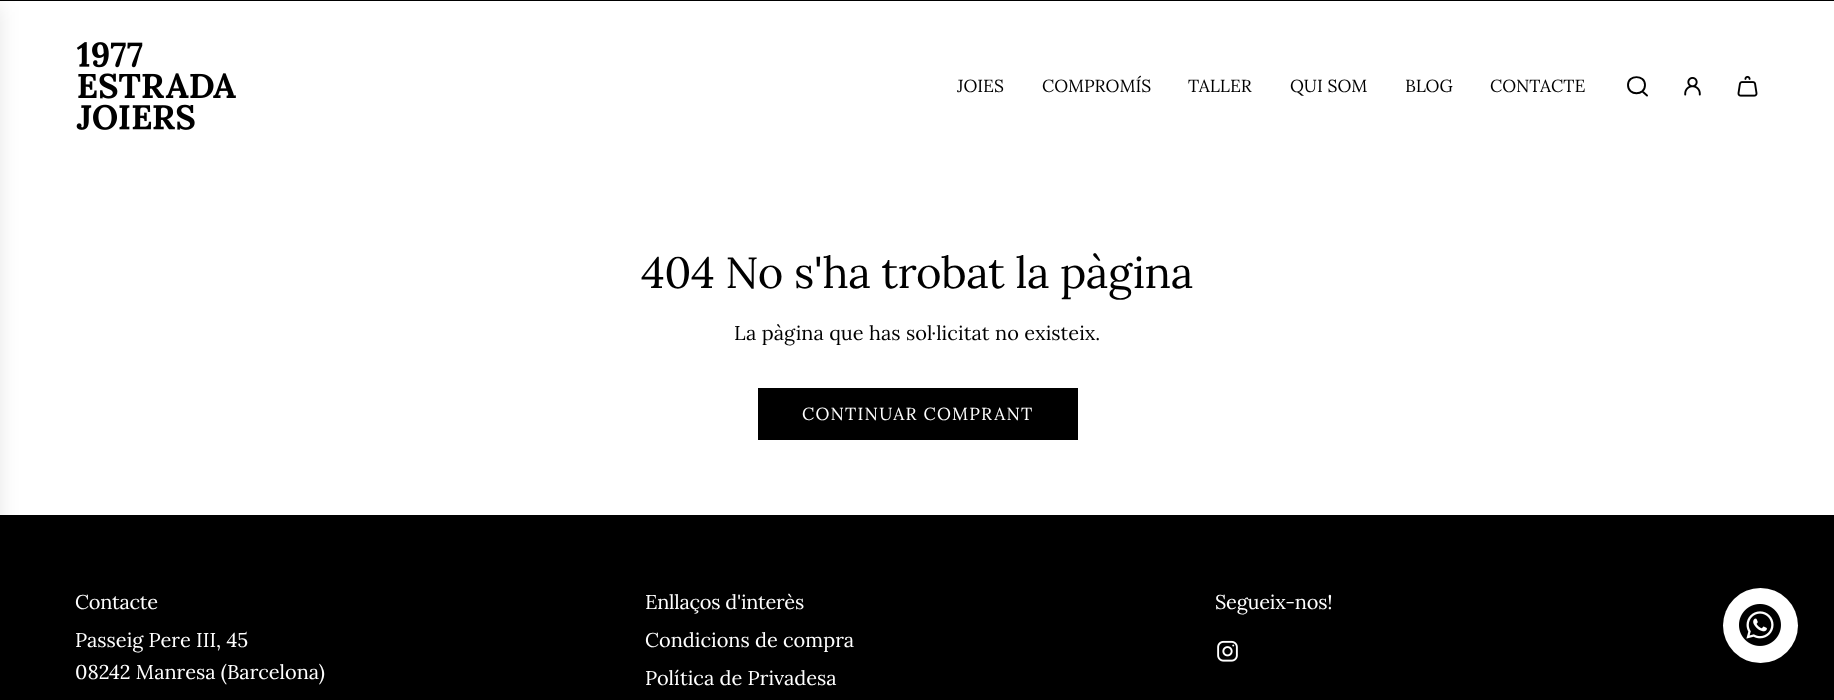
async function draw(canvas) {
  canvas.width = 1834
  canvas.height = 700
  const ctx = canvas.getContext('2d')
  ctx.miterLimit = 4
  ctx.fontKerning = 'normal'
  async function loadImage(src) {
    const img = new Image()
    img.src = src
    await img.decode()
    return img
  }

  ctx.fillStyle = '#fff'
  ctx.fillRect(0, 0, 1834, 700)
  ctx.fillStyle = '#000'
  ctx.fillRect(0, 0, 1834, 1)
  ctx.fillRect(0, 515, 1834, 185)
  ctx.fillStyle = '#0000001a'
  ctx.filter = 'blur(9.5px)'
  ctx.beginPath()
  ctx.rect(-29, 6, 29, 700)
  ctx.fill()
  ctx.filter = 'none'
  ctx.drawImage(await loadImage('image0.png'), 76, 42, 160, 88)
  ctx.font = '17.5px Lora'
  ctx.fillStyle = '#000'
  ctx.fillText('JOIES', 957, 92)
  ctx.fillText('COMPROMÍS', 1042, 92)
  ctx.fillText('TALLER', 1188, 92)
  ctx.fillText('QUI SOM', 1290, 92)
  ctx.fillText('BLOG', 1405, 92)
  ctx.fillText('CONTACTE', 1490, 92)
  ctx.beginPath()
  ctx.moveTo(1642.5, 91.5)
  ctx.lineTo(1647, 95.5)
  ctx.moveTo(1628, 85)
  ctx.bezierCurveTo(1628, 96, 1645, 96, 1645, 85)
  ctx.bezierCurveTo(1645, 74.5, 1628, 74.5, 1628, 85)
  ctx.closePath()
  ctx.strokeStyle = '#000'
  ctx.lineWidth = 1.9
  ctx.lineCap = 'round'
  ctx.lineJoin = 'round'
  ctx.stroke()
  ctx.drawImage(await loadImage('image1.png'), 1684, 77, 17, 19)
  ctx.drawImage(await loadImage('image2.png'), 1737, 75, 21, 22)
  ctx.letterSpacing = '-0.45px'
  ctx.font = '43.75px Lora'
  ctx.fillText('404 No s\'ha trobat la pàgina', 641, 288)
  ctx.letterSpacing = '0px'
  ctx.wordSpacing = '0.25px'
  ctx.font = '20px Lora'
  ctx.fillText('La pàgina que has sol·licitat no existeix.', 734, 340)
  ctx.fillRect(758, 388, 320, 52)
  ctx.letterSpacing = '1.25px'
  ctx.wordSpacing = '0px'
  ctx.font = '17.5px Lora'
  ctx.fillStyle = '#fff'
  ctx.fillText('CONTINUAR COMPRANT', 802, 420)
  ctx.letterSpacing = '-0.25px'
  ctx.font = '20px Lora'
  ctx.fillText('Contacte', 75, 609)
  ctx.letterSpacing = '0px'
  ctx.fillText('Passeig Pere III, 45', 75, 647)
  ctx.fillText('08242 Manresa (Barcelona)', 75, 679)
  ctx.letterSpacing = '-0.25px'
  ctx.fillText('Enllaços d\'interès', 645, 609)
  ctx.letterSpacing = '0px'
  ctx.fillText('Condicions de compra', 645, 647)
  ctx.fillText('Política de Privadesa', 645, 685)
  ctx.letterSpacing = '-0.25px'
  ctx.fillText('Segueix-nos!', 1215, 609)
  ctx.drawImage(await loadImage('image3.png'), 1217, 640, 21, 22)
  ctx.beginPath()
  ctx.arc(1760.5, 625.5, 37.5, 0, 2 * Math.PI)
  ctx.fill()
  ctx.drawImage(await loadImage('image4.png'), 1739, 604, 42, 42)
}

draw(document.querySelector('canvas'))
